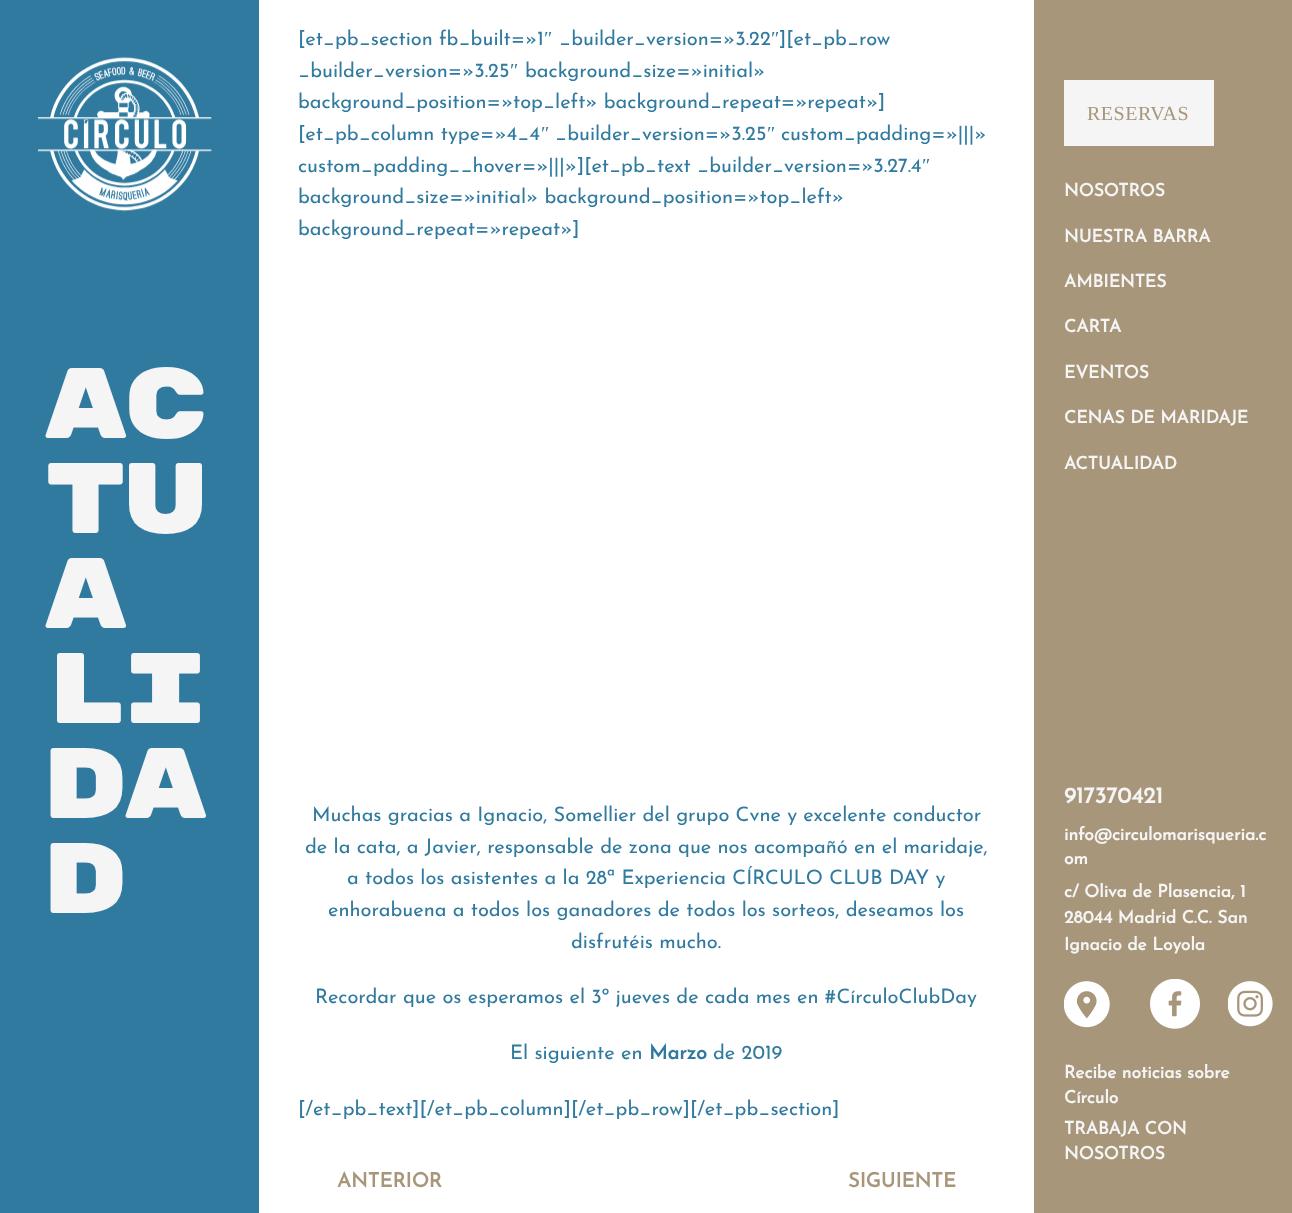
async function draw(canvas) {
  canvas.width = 1292
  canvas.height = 1213
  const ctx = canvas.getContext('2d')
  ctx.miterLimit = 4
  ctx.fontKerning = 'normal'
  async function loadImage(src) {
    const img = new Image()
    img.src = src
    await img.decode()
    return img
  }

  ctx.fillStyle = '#fff'
  ctx.fillRect(0, 0, 1292, 1213)
  ctx.fillStyle = '#307a9f'
  ctx.fillRect(0, 0, 259, 1213)
  ctx.drawImage(await loadImage('image0.png'), 37, 57, 175, 155)
  ctx.letterSpacing = '-5px'
  ctx.font = '100px Rubik Mono One'
  ctx.fillStyle = '#f5f5f5'
  ctx.fillText('ac', 43, 438)
  ctx.fillText('tu', 43, 533)
  ctx.fillText('a', 43, 628)
  ctx.fillText('li', 43, 723)
  ctx.fillText('da', 43, 818)
  ctx.fillText('d', 43, 913)
  ctx.letterSpacing = '0px'
  ctx.font = '20px Josefin Sans'
  ctx.fillStyle = '#307a9f'
  ctx.fillText('[et_pb_section fb_built=»1', 298, 45)
  ctx.font = '20px Liberation Serif'
  ctx.fillText('″', 544, 45)
  ctx.font = '20px Josefin Sans'
  ctx.fillText('_builder_version=»3.22', 559, 45)
  ctx.font = '20px Liberation Serif'
  ctx.fillText('″', 771, 45)
  ctx.font = '20px Josefin Sans'
  ctx.fillText('][et_pb_row', 779, 45)
  ctx.fillText('_builder_version=»3.25', 298, 77)
  ctx.font = '20px Liberation Serif'
  ctx.fillText('″', 510, 77)
  ctx.font = '20px Josefin Sans'
  ctx.fillText('background_size=»initial»', 525, 77)
  ctx.fillText('background_position=»top_left» background_repeat=»repeat»]', 298, 108)
  ctx.fillText('[et_pb_column type=»4_4', 298, 140)
  ctx.font = '20px Liberation Serif'
  ctx.fillText('″', 541, 140)
  ctx.font = '20px Josefin Sans'
  ctx.fillText('_builder_version=»3.25', 555, 140)
  ctx.font = '20px Liberation Serif'
  ctx.fillText('″', 767, 140)
  ctx.font = '20px Josefin Sans'
  ctx.fillText('custom_padding=»|||»', 781, 140)
  ctx.fillText('custom_padding__hover=»|||»][et_pb_text _builder_version=»3.27.4', 298, 172)
  ctx.font = '20px Liberation Serif'
  ctx.fillText('″', 922, 172)
  ctx.font = '20px Josefin Sans'
  ctx.fillText('background_size=»initial» background_position=»top_left»', 298, 203)
  ctx.fillText('background_repeat=»repeat»]', 298, 235)
  ctx.fillText('Muchas gracias a Ignacio, Somellier del grupo Cvne y excelente conductor', 312, 821)
  ctx.fillText('de la cata, a Javier, responsable de zona que nos acompañó en el maridaje,', 305, 853)
  ctx.fillText('a todos los asistentes a la 28ª Experiencia CÍRCULO CLUB DAY y', 347, 884)
  ctx.fillText('enhorabuena a todos los ganadores de todos los sorteos, deseamos los', 328, 916)
  ctx.fillText('disfrutéis mucho.', 571, 948)
  ctx.fillText('Recordar que os esperamos el 3º jueves de cada mes en #CírculoClubDay', 315, 1003)
  ctx.fillText('El siguiente en', 510, 1059)
  ctx.font = 'bold 20px Josefin Sans'
  ctx.fillText('Marzo', 649, 1059)
  ctx.font = '20px Josefin Sans'
  ctx.fillText('de 2019', 713, 1059)
  ctx.fillText('[/et_pb_text][/et_pb_column][/et_pb_row][/et_pb_section]', 298, 1115)
  ctx.font = 'bold 20px Josefin Sans'
  ctx.fillStyle = '#a8967b'
  ctx.fillText('ANTERIOR', 337, 1187)
  ctx.fillText('SIGUIENTE', 848, 1187)
  ctx.fillRect(1034, 0, 258, 1213)
  ctx.fillStyle = '#f5f5f5'
  ctx.fillRect(1064, 80, 150, 66)
  ctx.letterSpacing = '0.5px'
  ctx.font = '20px Liberation Serif'
  ctx.fillStyle = '#a8967b'
  ctx.fillText('RESERVAS', 1087, 120)
  ctx.letterSpacing = '0px'
  ctx.font = 'bold 17.5px Josefin Sans'
  ctx.fillStyle = '#f5f5f5'
  ctx.fillText('NOSOTROS', 1064, 196)
  ctx.fillText('NUESTRA BARRA', 1064, 242)
  ctx.fillText('AMBIENTES', 1064, 287)
  ctx.fillText('CARTA', 1064, 332)
  ctx.fillText('EVENTOS', 1064, 378)
  ctx.fillText('CENAS DE MARIDAJE', 1064, 423)
  ctx.fillText('ACTUALIDAD', 1064, 469)
  ctx.font = 'bold 22.5px Josefin Sans'
  ctx.fillText('917370421', 1064, 803)
  ctx.font = 'bold 17.5px Josefin Sans'
  ctx.fillText('info@circulomarisqueria.c', 1064, 840)
  ctx.fillText('om', 1064, 864)
  ctx.fillText('c/ Oliva de Plasencia, 1', 1064, 897)
  ctx.fillText('28044 Madrid C.C. San', 1064, 923)
  ctx.fillText('Ignacio de Loyola', 1064, 950)
  ctx.drawImage(await loadImage('image1.png'), 1064, 981, 46, 47)
  ctx.drawImage(await loadImage('image2.png'), 1150, 979, 50, 50)
  ctx.drawImage(await loadImage('image3.png'), 1228, 981, 45, 46)
  ctx.fillText('Recibe noticias sobre', 1064, 1078)
  ctx.fillText('Círculo', 1064, 1103)
  ctx.fillText('TRABAJA CON', 1064, 1134)
  ctx.fillText('NOSOTROS', 1064, 1159)
}

draw(document.querySelector('canvas'))
